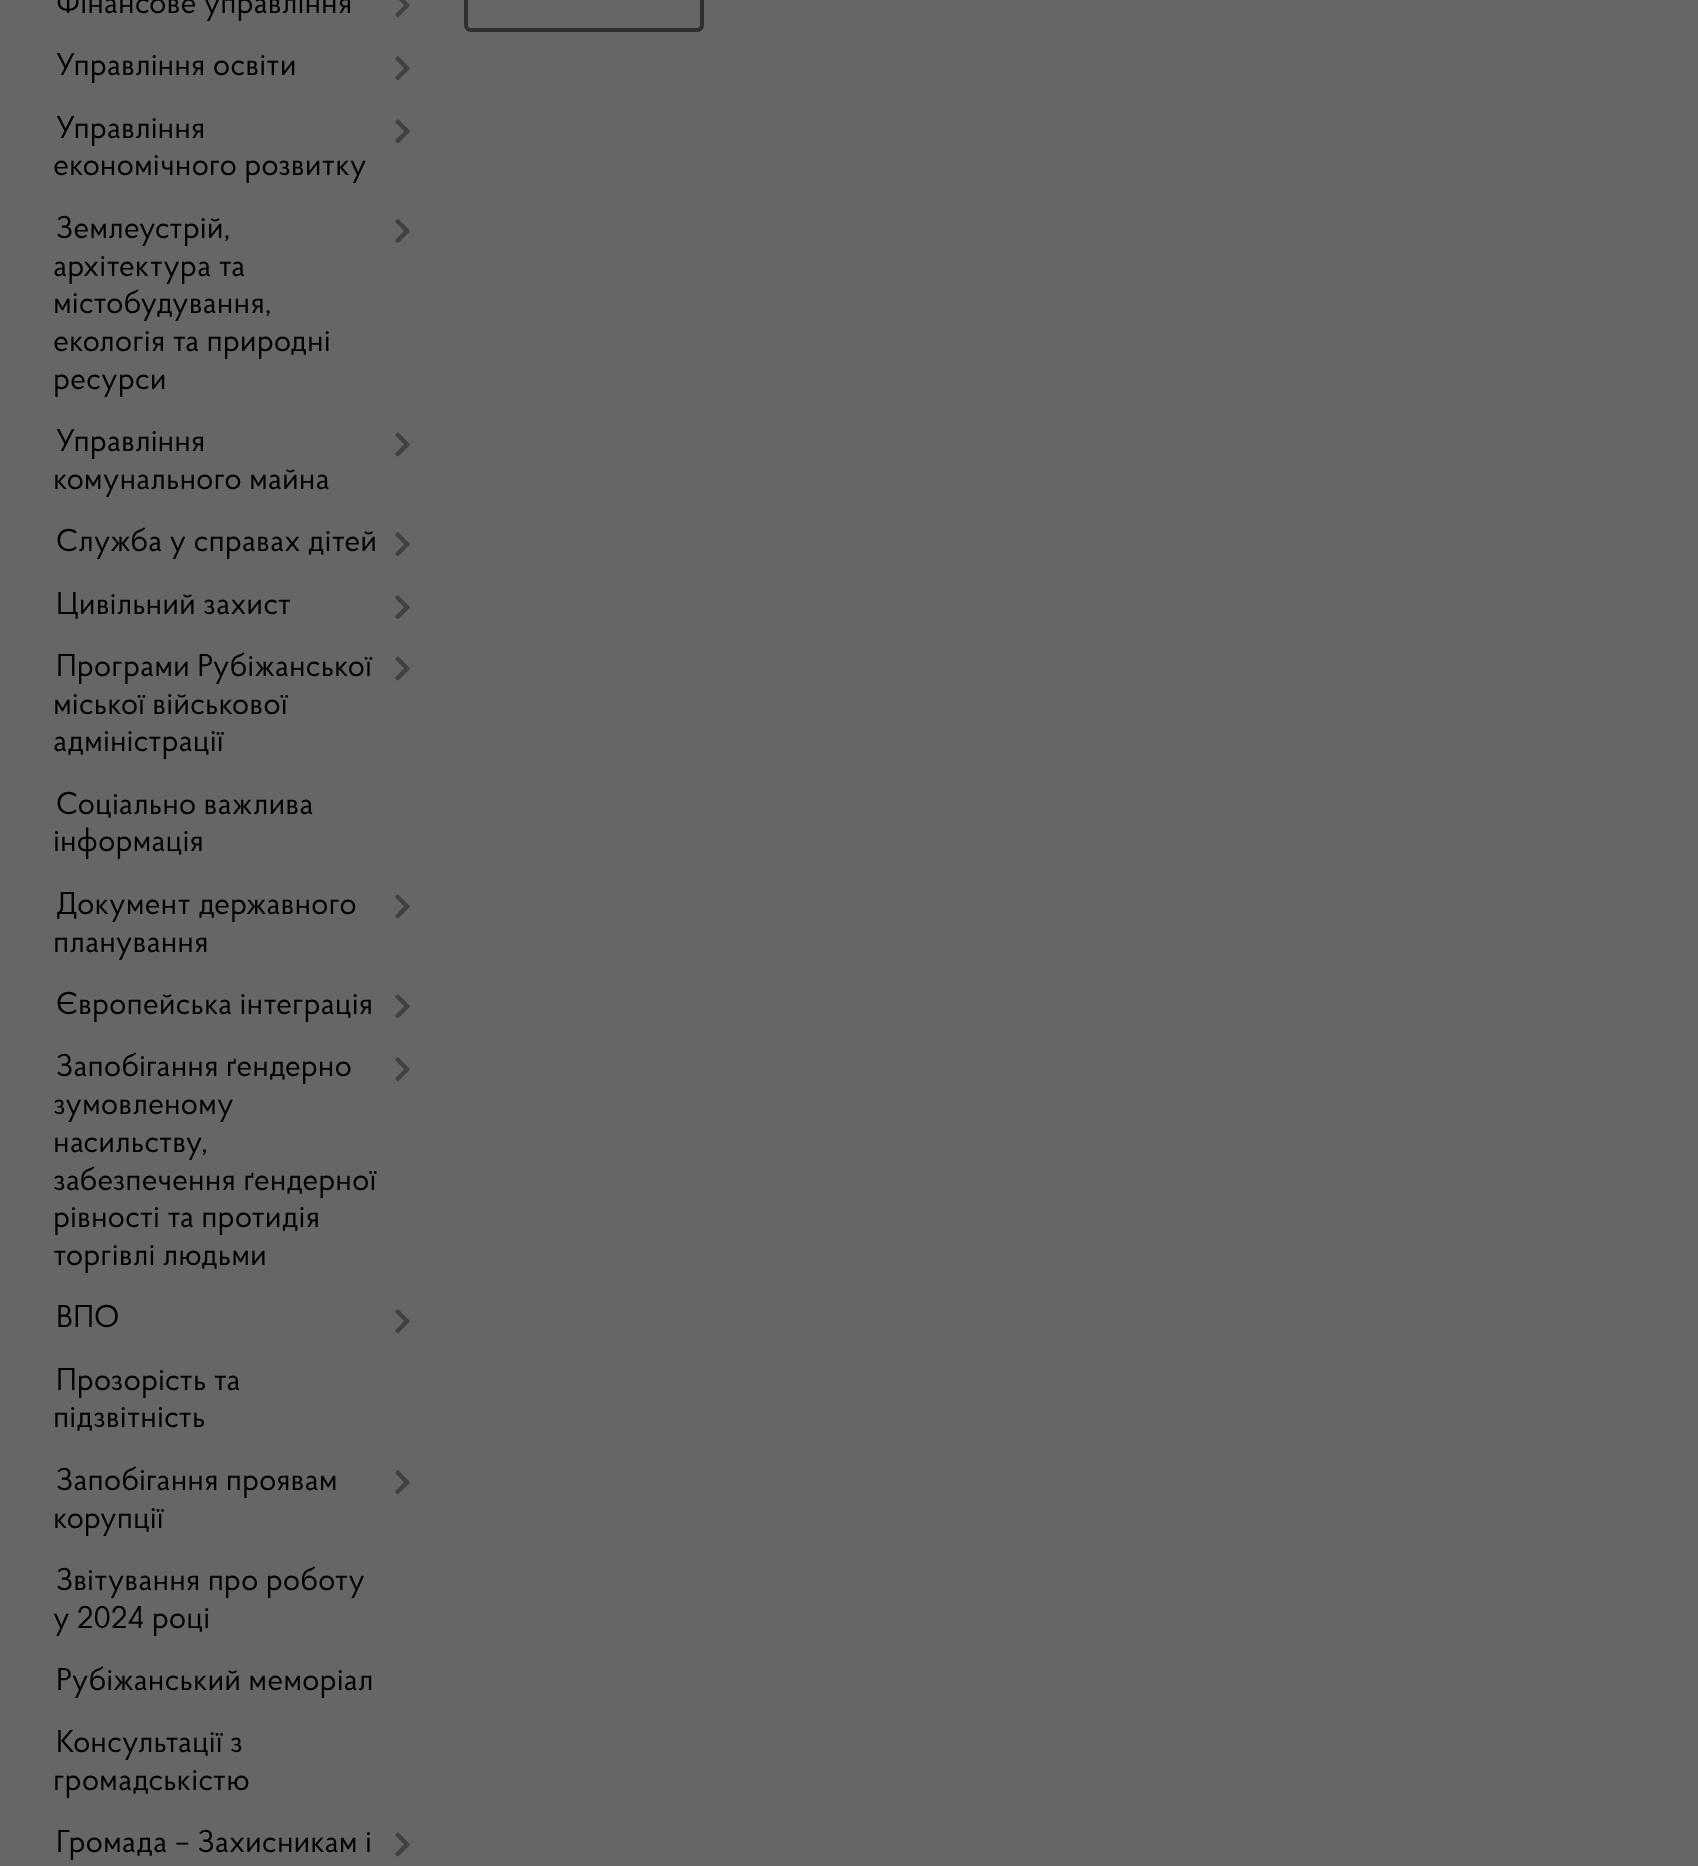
async function draw(canvas) {
  canvas.width = 1698
  canvas.height = 1866
  const ctx = canvas.getContext('2d')
  ctx.miterLimit = 4
  ctx.fontKerning = 'normal'
  async function loadImage(src) {
    const img = new Image()
    img.src = src
    await img.decode()
    return img
  }

  ctx.fillStyle = '#666'
  ctx.fillRect(0, 0, 1698, 1866)
  ctx.font = '31.5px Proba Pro'
  ctx.fillStyle = '#000'
  ctx.fillText('Фінансове управління', 56, 13)
  ctx.drawImage(await loadImage('image0.png'), 395, 0, 15, 18)
  ctx.fillText('Управління освіти', 56, 75)
  ctx.drawImage(await loadImage('image1.png'), 395, 56, 15, 25)
  ctx.fillText('Управління', 56, 138)
  ctx.fillText('економічного розвитку', 53, 175)
  ctx.drawImage(await loadImage('image1.png'), 395, 119, 15, 25)
  ctx.fillText('Землеустрій,', 56, 238)
  ctx.fillText('архітектура та', 53, 276)
  ctx.fillText('містобудування,', 53, 313)
  ctx.fillText('екологія та природні', 53, 351)
  ctx.fillText('ресурси', 53, 389)
  ctx.drawImage(await loadImage('image2.png'), 395, 219, 15, 24)
  ctx.fillText('Управління', 56, 451)
  ctx.fillText('комунального майна', 53, 489)
  ctx.drawImage(await loadImage('image3.png'), 395, 432, 15, 25)
  ctx.fillText('Служба у справах дітей', 56, 551)
  ctx.drawImage(await loadImage('image1.png'), 395, 532, 15, 25)
  ctx.fillText('Цивільний захист', 56, 614)
  ctx.drawImage(await loadImage('image1.png'), 395, 595, 15, 25)
  ctx.fillText('Програми Рубіжанської', 56, 676)
  ctx.fillText('міської військової', 53, 714)
  ctx.fillText('адміністрації', 53, 751)
  ctx.drawImage(await loadImage('image3.png'), 395, 656, 15, 25)
  ctx.fillText('Соціально важлива', 56, 814)
  ctx.fillText('інформація', 53, 851)
  ctx.fillText('Документ державного', 56, 914)
  ctx.fillText('планування', 53, 952)
  ctx.drawImage(await loadImage('image3.png'), 395, 894, 15, 25)
  ctx.fillText('Європейська інтеграція', 56, 1014)
  ctx.drawImage(await loadImage('image1.png'), 395, 994, 15, 25)
  ctx.fillText('Запобігання ґендерно', 56, 1076)
  ctx.fillText('зумовленому', 53, 1114)
  ctx.fillText('насильству,', 53, 1152)
  ctx.fillText('забезпечення ґендерної', 53, 1190)
  ctx.fillText('рівності та протидія', 53, 1227)
  ctx.fillText('торгівлі людьми', 53, 1265)
  ctx.drawImage(await loadImage('image1.png'), 395, 1057, 15, 25)
  ctx.fillText('ВПО', 56, 1327)
  ctx.drawImage(await loadImage('image1.png'), 395, 1309, 15, 25)
  ctx.fillText('Прозорість та', 56, 1390)
  ctx.fillText('підзвітність', 53, 1427)
  ctx.fillText('Запобігання проявам', 56, 1490)
  ctx.fillText('корупції', 53, 1528)
  ctx.drawImage(await loadImage('image1.png'), 395, 1470, 15, 25)
  ctx.fillText('Звітування про роботу', 56, 1590)
  ctx.fillText('у 2024 році', 53, 1628)
  ctx.fillText('Рубіжанський меморіал', 56, 1690)
  ctx.fillText('Консультації з', 56, 1752)
  ctx.fillText('громадськістю', 53, 1790)
  ctx.fillText('Громада – Захисникам і', 56, 1852)
  ctx.drawImage(await loadImage('image3.png'), 395, 1832, 15, 25)
  ctx.beginPath()
  ctx.roundRect(466, -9, 236, 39, 5)
  ctx.strokeStyle = '#2f2f2f'
  ctx.lineWidth = 4
  ctx.stroke()
}

draw(document.querySelector('canvas'))
